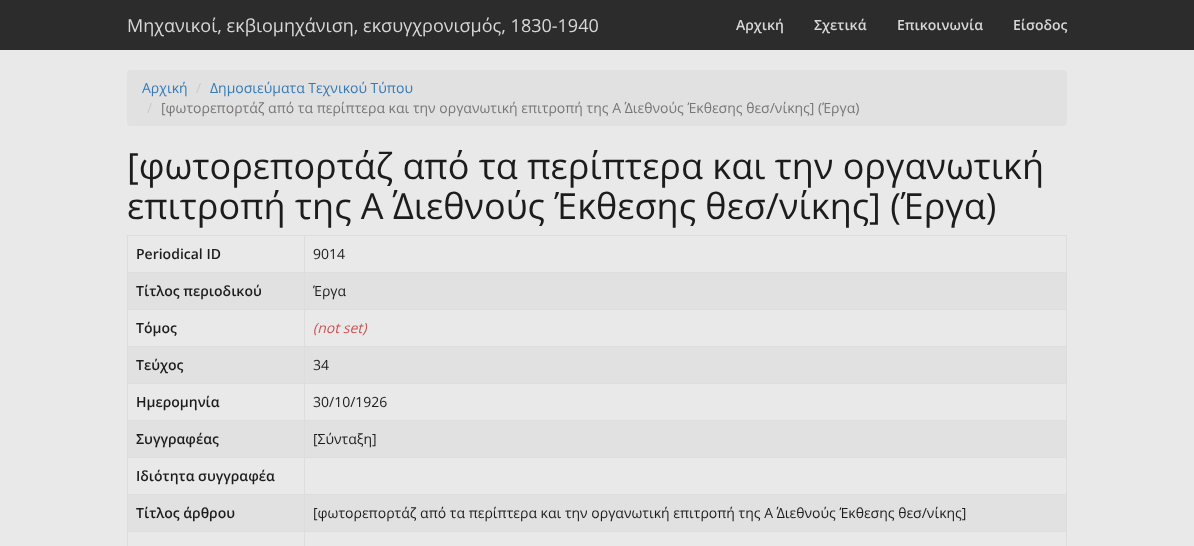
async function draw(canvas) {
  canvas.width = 1194
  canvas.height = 546
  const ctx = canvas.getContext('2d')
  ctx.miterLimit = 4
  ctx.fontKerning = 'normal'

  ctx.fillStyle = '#e9e9e9'
  ctx.fillRect(0, 0, 1194, 546)
  ctx.fillStyle = '#2c2c2c'
  ctx.fillRect(0, 0, 1194, 50)
  ctx.font = '18px Open Sans'
  ctx.fillStyle = '#d7d7d7'
  ctx.fillText('Μηχανικοί, εκβιομηχάνιση, εκσυγχρονισμός, 1830-1940', 127, 32)
  ctx.font = '600 14px Open Sans'
  ctx.fillText('Αρχική', 736, 30)
  ctx.fillText('Σχετικά', 814, 30)
  ctx.fillText('Επικοινωνία', 897, 30)
  ctx.fillText('Είσοδος', 1013, 30)
  ctx.fillStyle = '#e1e1e1'
  ctx.beginPath()
  ctx.roundRect(127, 70, 940, 56, 4)
  ctx.fill()
  ctx.font = '14px Open Sans'
  ctx.fillStyle = '#337ab7'
  ctx.fillText('Αρχική', 142, 93)
  ctx.fillStyle = '#ccc'
  ctx.fillText('/', 196, 93)
  ctx.fillStyle = '#337ab7'
  ctx.fillText('Δημοσιεύματα Τεχνικού Τύπου', 210, 93)
  ctx.fillStyle = '#ccc'
  ctx.fillText('/', 147, 113)
  ctx.fillStyle = '#777'
  ctx.fillText('[φωτορεπορτάζ από τα περίπτερα και την οργανωτική επιτροπή της Α΄ Διεθνούς Έκθεσης θεσ/νίκης] (Έργα)', 161, 113)
  ctx.font = '36px Open Sans'
  ctx.fillStyle = '#1c1c1c'
  ctx.fillText('[φωτορεπορτάζ από τα περίπτερα και την οργανωτική', 127, 179)
  ctx.fillText('επιτροπή της Α΄ Διεθνούς Έκθεσης θεσ/νίκης] (Έργα)', 127, 219)
  ctx.fillStyle = '#e1e1e1'
  ctx.fillRect(128, 273, 938, 258)
  ctx.fillStyle = '#ddd'
  ctx.fillRect(304, 235, 763, 1)
  ctx.fillRect(304, 272, 763, 1)
  ctx.fillRect(304, 309, 763, 1)
  ctx.fillStyle = '#e9e9e9'
  ctx.fillRect(128, 310, 938, 36)
  ctx.fillStyle = '#ddd'
  ctx.fillRect(304, 346, 763, 1)
  ctx.fillRect(304, 383, 763, 1)
  ctx.fillStyle = '#e9e9e9'
  ctx.fillRect(128, 384, 938, 36)
  ctx.fillStyle = '#ddd'
  ctx.fillRect(304, 420, 763, 1)
  ctx.fillRect(304, 457, 763, 1)
  ctx.fillStyle = '#e9e9e9'
  ctx.fillRect(128, 458, 938, 36)
  ctx.fillStyle = '#ddd'
  ctx.fillRect(304, 494, 763, 1)
  ctx.fillRect(304, 531, 763, 1)
  ctx.fillRect(304, 531, 1, 15)
  ctx.fillRect(127, 531, 178, 1)
  ctx.fillRect(304, 494, 1, 38)
  ctx.fillRect(127, 494, 178, 1)
  ctx.fillRect(304, 457, 1, 38)
  ctx.fillRect(127, 457, 178, 1)
  ctx.fillRect(304, 420, 1, 38)
  ctx.fillRect(127, 420, 178, 1)
  ctx.fillRect(304, 383, 1, 38)
  ctx.fillRect(127, 383, 178, 1)
  ctx.fillRect(304, 346, 1, 38)
  ctx.fillRect(127, 346, 178, 1)
  ctx.fillRect(304, 309, 1, 38)
  ctx.fillRect(127, 309, 178, 1)
  ctx.fillRect(304, 272, 1, 38)
  ctx.fillRect(127, 272, 178, 1)
  ctx.fillRect(304, 235, 1, 38)
  ctx.fillRect(127, 235, 178, 1)
  ctx.fillRect(127, 531, 1, 15)
  ctx.fillRect(127, 494, 1, 38)
  ctx.fillRect(127, 457, 1, 38)
  ctx.fillRect(127, 420, 1, 38)
  ctx.fillRect(127, 383, 1, 38)
  ctx.fillRect(127, 346, 1, 38)
  ctx.fillRect(127, 309, 1, 38)
  ctx.fillRect(127, 272, 1, 38)
  ctx.fillRect(127, 235, 1, 38)
  ctx.font = '600 14px Open Sans'
  ctx.fillStyle = '#1c1c1c'
  ctx.fillText('Periodical ID', 136, 259)
  ctx.fillStyle = '#ddd'
  ctx.fillRect(1066, 531, 1, 15)
  ctx.fillRect(1066, 494, 1, 38)
  ctx.fillRect(1066, 457, 1, 38)
  ctx.fillRect(1066, 420, 1, 38)
  ctx.fillRect(1066, 383, 1, 38)
  ctx.fillRect(1066, 346, 1, 38)
  ctx.fillRect(1066, 309, 1, 38)
  ctx.fillRect(1066, 272, 1, 38)
  ctx.fillRect(1066, 235, 1, 38)
  ctx.font = '14px Open Sans'
  ctx.fillStyle = '#1c1c1c'
  ctx.fillText('9014', 313, 259)
  ctx.font = '600 14px Open Sans'
  ctx.fillText('Τίτλος περιοδικού', 136, 296)
  ctx.font = '14px Open Sans'
  ctx.fillText('Έργα', 313, 296)
  ctx.font = '600 14px Open Sans'
  ctx.fillText('Τόμος', 136, 333)
  ctx.font = 'italic 14px Open Sans'
  ctx.fillStyle = '#c55'
  ctx.fillText('(not set)', 313, 333)
  ctx.font = '600 14px Open Sans'
  ctx.fillStyle = '#1c1c1c'
  ctx.fillText('Τεύχος', 136, 370)
  ctx.font = '14px Open Sans'
  ctx.fillText('34', 313, 370)
  ctx.font = '600 14px Open Sans'
  ctx.fillText('Ημερομηνία', 136, 407)
  ctx.font = '14px Open Sans'
  ctx.fillText('30/10/1926', 313, 407)
  ctx.font = '600 14px Open Sans'
  ctx.fillText('Συγγραφέας', 136, 444)
  ctx.font = '14px Open Sans'
  ctx.fillText('[Σύνταξη]', 313, 444)
  ctx.font = '600 14px Open Sans'
  ctx.fillText('Ιδιότητα συγγραφέα', 136, 481)
  ctx.fillText('Tίτλος άρθρου', 136, 518)
  ctx.font = '14px Open Sans'
  ctx.fillText('[φωτορεπορτάζ από τα περίπτερα και την οργανωτική επιτροπή της Α΄ Διεθνούς Έκθεσης θεσ/νίκης]', 313, 518)
}

draw(document.querySelector('canvas'))
